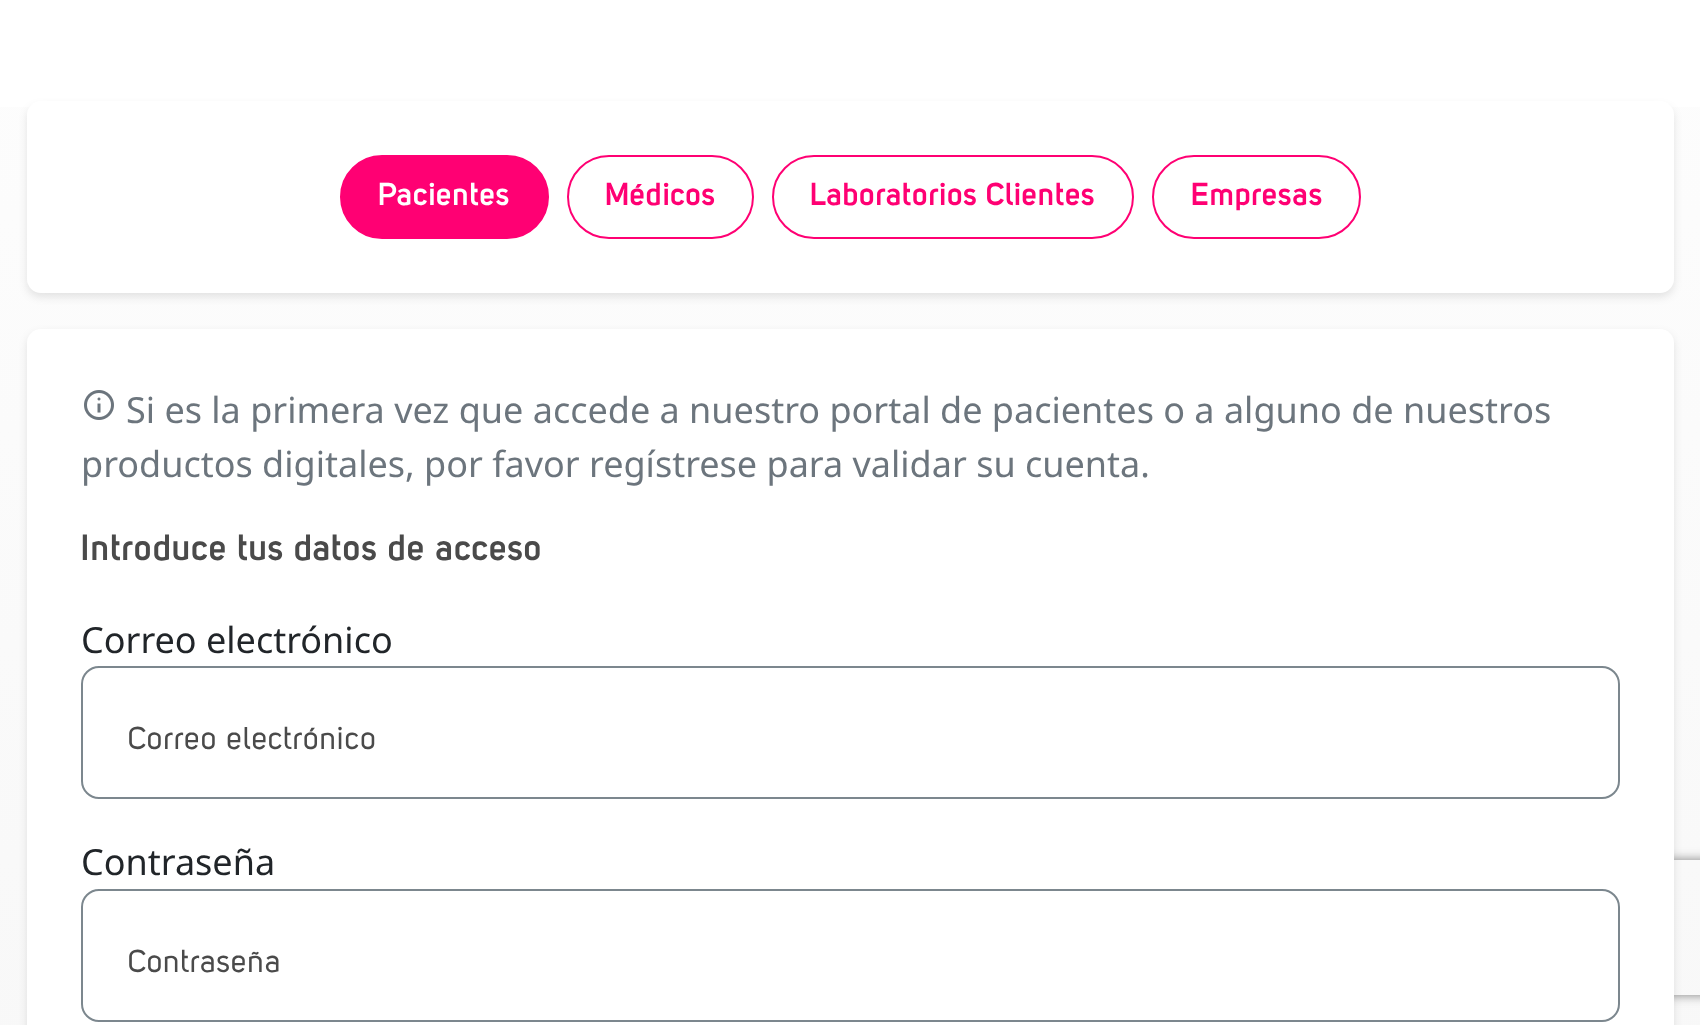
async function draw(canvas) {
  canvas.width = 1700
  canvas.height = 1025
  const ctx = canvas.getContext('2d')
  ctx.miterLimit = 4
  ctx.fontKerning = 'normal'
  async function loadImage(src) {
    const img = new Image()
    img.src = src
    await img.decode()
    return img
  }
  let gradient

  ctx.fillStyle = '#fff'
  ctx.fillRect(0, 0, 1700, 1025)
  gradient = ctx.createLinearGradient(850, 0, 851, 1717)
  gradient.addColorStop(0, '#fdfdfd')
  gradient.addColorStop(1, '#f5f5f5')
  ctx.fillStyle = gradient
  ctx.fillRect(0, 107, 1700, 918)
  ctx.fillStyle = '#0000001a'
  ctx.filter = 'blur(4.5px)'
  ctx.beginPath()
  ctx.roundRect(27, 106, 1647, 191, 14)
  ctx.fill()
  ctx.filter = 'none'
  ctx.fillStyle = '#fff'
  ctx.beginPath()
  ctx.roundRect(27, 101, 1647, 192, 14)
  ctx.fill()
  ctx.fillStyle = '#ff0073'
  ctx.beginPath()
  ctx.roundRect(341, 156, 207, 82, 41)
  ctx.fill()
  ctx.strokeStyle = '#ff0073'
  ctx.lineWidth = 2
  ctx.stroke()
  ctx.letterSpacing = '0.6px'
  ctx.font = '600 31.5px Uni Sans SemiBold'
  ctx.fillStyle = '#fff'
  ctx.fillText('Pacientes', 378, 205)
  ctx.beginPath()
  ctx.roundRect(568, 156, 185, 82, 41)
  ctx.stroke()
  ctx.fillStyle = '#ff0073'
  ctx.fillText('Médicos', 605, 205)
  ctx.beginPath()
  ctx.roundRect(773, 156, 360, 82, 41)
  ctx.stroke()
  ctx.fillText('Laboratorios Clientes', 810, 205)
  ctx.beginPath()
  ctx.roundRect(1153, 156, 207, 82, 41)
  ctx.stroke()
  ctx.fillText('Empresas', 1191, 205)
  ctx.fillStyle = '#0000001a'
  ctx.filter = 'blur(4.5px)'
  ctx.beginPath()
  ctx.roundRect(27, 333, 1647, 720, 14)
  ctx.fill()
  ctx.filter = 'none'
  ctx.save()
  ctx.beginPath()
  ctx.moveTo(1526, 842)
  ctx.lineTo(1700, 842)
  ctx.lineTo(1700, 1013)
  ctx.lineTo(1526, 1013)
  ctx.closePath()
  ctx.moveTo(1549, 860)
  ctx.lineTo(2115, 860)
  ctx.bezierCurveTo(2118, 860, 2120, 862, 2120, 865)
  ctx.lineTo(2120, 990)
  ctx.bezierCurveTo(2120, 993, 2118, 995, 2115, 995)
  ctx.lineTo(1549, 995)
  ctx.bezierCurveTo(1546, 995, 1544, 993, 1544, 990)
  ctx.lineTo(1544, 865)
  ctx.bezierCurveTo(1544, 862, 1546, 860, 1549, 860)
  ctx.closePath()
  ctx.clip('evenodd')
  ctx.fillStyle = '#808080'
  ctx.filter = 'blur(5.5px)'
  ctx.beginPath()
  ctx.roundRect(1544, 860, 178, 135, 5)
  ctx.fill()
  ctx.filter = 'none'
  ctx.restore()
  ctx.fillStyle = '#fff'
  ctx.beginPath()
  ctx.roundRect(27, 329, 1647, 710, 14)
  ctx.fill()
  ctx.drawImage(await loadImage('image0.png'), 84, 390, 30, 30)
  ctx.letterSpacing = '0px'
  ctx.font = '36px Noto Sans'
  ctx.fillStyle = '#6c757d'
  ctx.fillText('Si es la primera vez que accede a nuestro portal de pacientes o a alguno de nuestros', 126, 423)
  ctx.fillText('productos digitales, por favor regístrese para validar su cuenta.', 81, 477)
  ctx.letterSpacing = '0.75px'
  ctx.font = '600 36px Uni Sans SemiBold'
  ctx.fillStyle = '#4a4a4a'
  ctx.fillText('Introduce tus datos de acceso', 81, 560)
  ctx.letterSpacing = '0px'
  ctx.font = '36px Noto Sans'
  ctx.fillStyle = '#212529'
  ctx.fillText('Correo electrónico', 81, 653)
  ctx.beginPath()
  ctx.roundRect(82, 667, 1537, 131, 17)
  ctx.strokeStyle = '#7c878e'
  ctx.stroke()
  ctx.letterSpacing = '0.75px'
  ctx.font = '31.5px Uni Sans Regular'
  ctx.fillStyle = '#4a4a4a'
  ctx.fillText('Correo electrónico', 128, 749)
  ctx.letterSpacing = '0px'
  ctx.font = '36px Noto Sans'
  ctx.fillStyle = '#212529'
  ctx.fillText('Contraseña', 81, 875)
  ctx.beginPath()
  ctx.roundRect(82, 890, 1537, 131, 17)
  ctx.stroke()
  ctx.letterSpacing = '0.75px'
  ctx.font = '31.5px Uni Sans Regular'
  ctx.fillStyle = '#4a4a4a'
  ctx.fillText('Contraseña', 128, 972)
}

draw(document.querySelector('canvas'))
